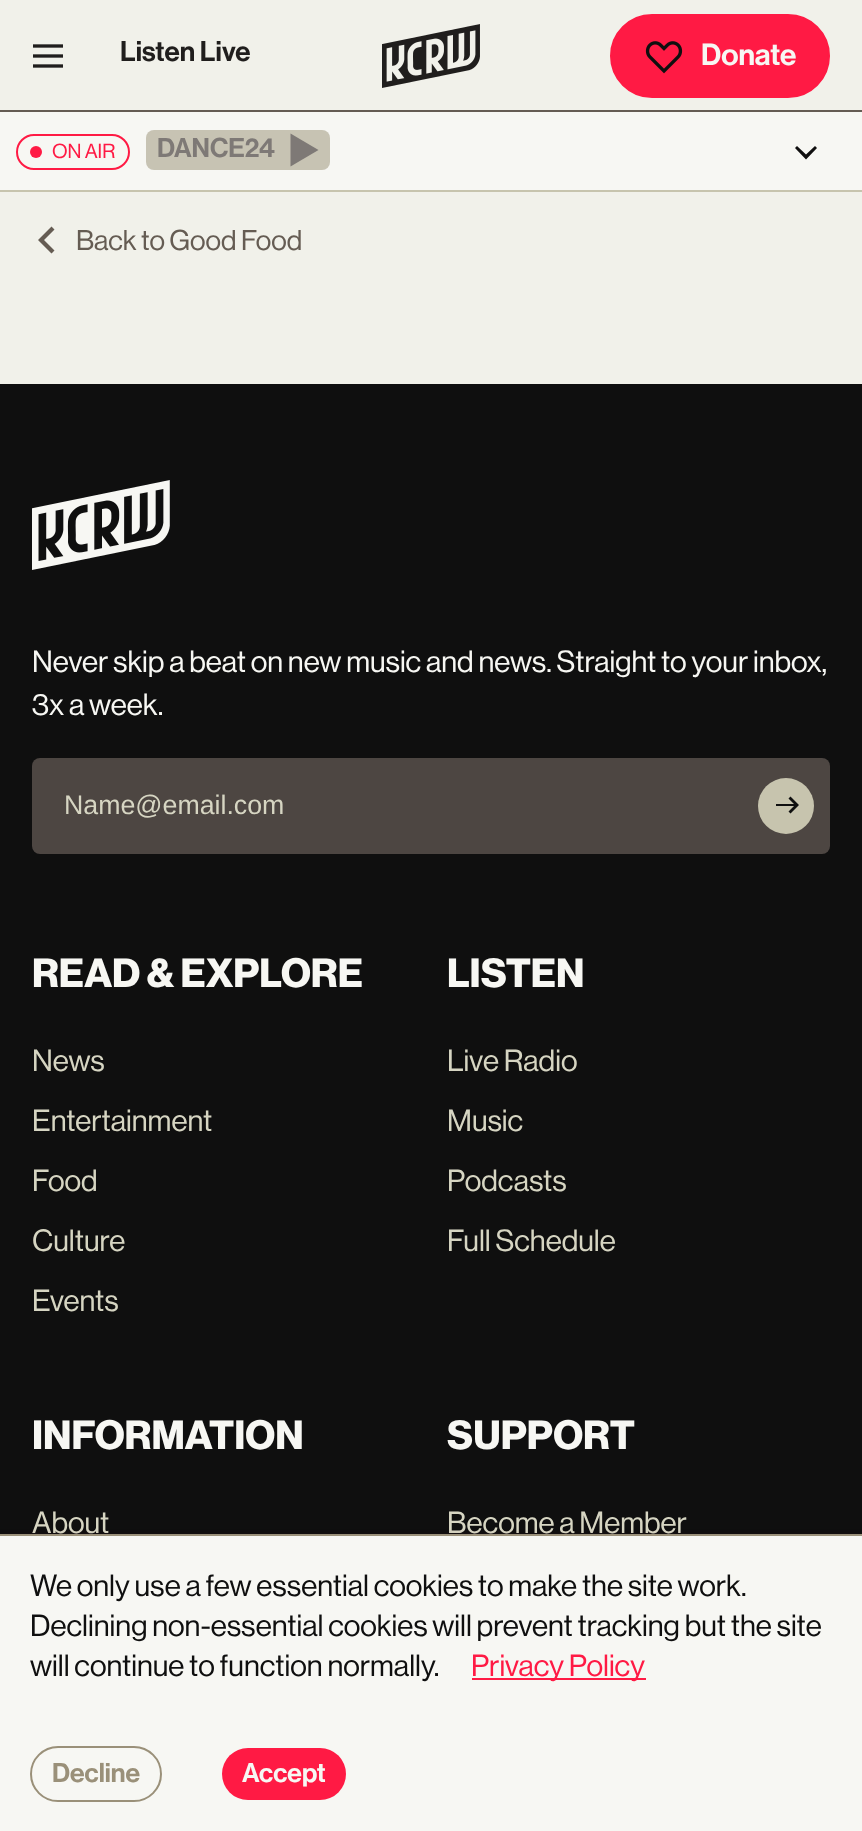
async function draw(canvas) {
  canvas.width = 862
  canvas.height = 1831
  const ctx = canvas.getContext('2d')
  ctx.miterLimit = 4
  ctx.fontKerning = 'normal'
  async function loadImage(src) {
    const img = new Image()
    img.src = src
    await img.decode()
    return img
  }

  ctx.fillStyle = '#f1f1ea'
  ctx.fillRect(0, 0, 862, 1831)
  ctx.fillStyle = '#655c53'
  ctx.fillRect(0, 110, 862, 2)
  ctx.drawImage(await loadImage('image0.png'), 33, 44, 30, 24)
  ctx.font = '500 28px "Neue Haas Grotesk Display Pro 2"'
  ctx.fillStyle = '#201e1d'
  ctx.fillText('Listen Live', 120, 61)
  ctx.drawImage(await loadImage('image1.png'), 382, 24, 98, 64)
  ctx.fillStyle = '#ff1a44'
  ctx.beginPath()
  ctx.roundRect(611, 15, 218, 82, 41)
  ctx.fill()
  ctx.strokeStyle = '#ff1a44'
  ctx.lineWidth = 2
  ctx.stroke()
  ctx.drawImage(await loadImage('image2.png'), 645, 41, 38, 33)
  ctx.font = '500 30px "Neue Haas Grotesk Display Pro 2"'
  ctx.fillStyle = '#f7f7f3'
  ctx.fillText('Donate', 701, 65)
  ctx.fillRect(0, 112, 862, 78)
  ctx.fillStyle = '#c7c4ae'
  ctx.fillRect(0, 190, 862, 2)
  ctx.beginPath()
  ctx.roundRect(17, 135, 112, 34, 17)
  ctx.stroke()
  ctx.fillStyle = '#ff1a44'
  ctx.beginPath()
  ctx.arc(36, 152, 6, 0, 2 * Math.PI)
  ctx.fill()
  ctx.font = '500 20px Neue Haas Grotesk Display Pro'
  ctx.fillText('ON AIR', 52, 158)
  ctx.fillStyle = '#efefef'
  ctx.beginPath()
  ctx.roundRect(146, 130, 184, 40, 8)
  ctx.fill()
  ctx.fillStyle = '#b6b19ab3'
  ctx.beginPath()
  ctx.roundRect(146, 130, 184, 40, 8)
  ctx.fill()
  ctx.font = '500 26.75px "Neue Haas Grotesk Display Pro 2"'
  ctx.fillStyle = '#7e7976'
  ctx.fillText('DANCE24', 157, 157)
  ctx.beginPath()
  ctx.moveTo(290.5, 133.5)
  ctx.lineTo(290.5, 166.5)
  ctx.lineTo(318.5, 150)
  ctx.closePath()
  ctx.fill()
  ctx.fillStyle = '#100f0f'
  ctx.beginPath()
  ctx.moveTo(795, 148)
  ctx.lineTo(797, 146)
  ctx.lineTo(806, 154.5)
  ctx.lineTo(815, 146)
  ctx.lineTo(817, 148)
  ctx.lineTo(806, 159.5)
  ctx.closePath()
  ctx.fill('evenodd')
  ctx.fillStyle = '#655c53'
  ctx.beginPath()
  ctx.moveTo(51.5, 226.5)
  ctx.lineTo(54.5, 229.5)
  ctx.lineTo(44, 240)
  ctx.lineTo(54.5, 250.5)
  ctx.lineTo(51.5, 253.5)
  ctx.lineTo(38, 240)
  ctx.closePath()
  ctx.fill('evenodd')
  ctx.font = '500 28px Neue Haas Grotesk Display Pro'
  ctx.fillText('Back to Good Food', 76, 250)
  ctx.fillStyle = '#0f0f0f'
  ctx.fillRect(0, 384, 862, 1150)
  ctx.drawImage(await loadImage('image3.png'), 32, 480, 138, 90)
  ctx.font = '500 30px Neue Haas Grotesk Display Pro'
  ctx.fillStyle = '#f7f7f3'
  ctx.fillText('Never skip a beat on new music and news. Straight to your inbox,', 32, 672)
  ctx.fillText('3x a week.', 32, 715)
  ctx.fillStyle = '#4d4642'
  ctx.beginPath()
  ctx.roundRect(32, 758, 798, 96, 8)
  ctx.fill()
  ctx.font = '26.75px Liberation Sans'
  ctx.fillStyle = '#d6d5c2'
  ctx.fillText('Name@email.com', 64, 814)
  ctx.fillStyle = '#c7c4ae'
  ctx.beginPath()
  ctx.arc(786, 806, 28, 0, 2 * Math.PI)
  ctx.fill()
  ctx.fillStyle = '#0f0f0f'
  ctx.beginPath()
  ctx.moveTo(795, 805)
  ctx.lineTo(788.5, 798.5)
  ctx.lineTo(790.5, 796.5)
  ctx.lineTo(799, 805)
  ctx.lineTo(790.5, 813.5)
  ctx.lineTo(788.5, 811.5)
  ctx.closePath()
  ctx.fill('evenodd')
  ctx.fillRect(776, 804, 20, 2)
  ctx.font = 'bold 40px Neue Haas Grotesk Display Pro'
  ctx.fillStyle = '#f7f7f3'
  ctx.fillText('READ & EXPLORE', 32, 987)
  ctx.font = '500 30px Neue Haas Grotesk Display Pro'
  ctx.fillStyle = '#d6d5c2'
  ctx.fillText('News', 32, 1071)
  ctx.fillText('Entertainment', 32, 1131)
  ctx.fillText('Food', 32, 1191)
  ctx.fillText('Culture', 32, 1251)
  ctx.fillText('Events', 32, 1311)
  ctx.font = 'bold 40px Neue Haas Grotesk Display Pro'
  ctx.fillStyle = '#f7f7f3'
  ctx.fillText('LISTEN', 447, 987)
  ctx.font = '500 30px Neue Haas Grotesk Display Pro'
  ctx.fillStyle = '#d6d5c2'
  ctx.fillText('Live Radio', 447, 1071)
  ctx.fillText('Music', 447, 1131)
  ctx.fillText('Podcasts', 447, 1191)
  ctx.fillText('Full Schedule', 447, 1251)
  ctx.font = 'bold 40px Neue Haas Grotesk Display Pro'
  ctx.fillStyle = '#f7f7f3'
  ctx.fillText('INFORMATION', 32, 1449)
  ctx.font = '500 30px Neue Haas Grotesk Display Pro'
  ctx.fillStyle = '#d6d5c2'
  ctx.fillText('About', 32, 1533)
  ctx.font = 'bold 40px Neue Haas Grotesk Display Pro'
  ctx.fillStyle = '#f7f7f3'
  ctx.fillText('SUPPORT', 447, 1449)
  ctx.font = '500 30px Neue Haas Grotesk Display Pro'
  ctx.fillStyle = '#d6d5c2'
  ctx.fillText('Become a Member', 447, 1533)
  ctx.fillStyle = '#67051140'
  ctx.filter = 'blur(4px)'
  ctx.beginPath()
  ctx.rect(0, 1538, 862, 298)
  ctx.fill()
  ctx.filter = 'none'
  ctx.fillStyle = '#f7f7f3'
  ctx.fillRect(0, 1536, 862, 295)
  ctx.fillStyle = '#9a9079'
  ctx.fillRect(0, 1534, 862, 2)
  ctx.fillStyle = '#0f0f0f'
  ctx.fillText('We only use a few essential cookies to make the site work.', 30, 1596)
  ctx.fillText('Declining non-essential cookies will prevent tracking but the site', 30, 1636)
  ctx.fillText('will continue to function normally.', 30, 1676)
  ctx.fillStyle = '#ff1a44'
  ctx.fillRect(472, 1678, 174, 2)
  ctx.fillText('Privacy Policy', 471, 1676)
  ctx.beginPath()
  ctx.roundRect(31, 1747, 130, 54, 27)
  ctx.strokeStyle = '#9a9079'
  ctx.stroke()
  ctx.font = '500 26.75px "Neue Haas Grotesk Display Pro 2"'
  ctx.fillStyle = '#9a9079'
  ctx.fillText('Decline', 52, 1782)
  ctx.fillStyle = '#ff1a44'
  ctx.beginPath()
  ctx.roundRect(222, 1748, 124, 52, 26)
  ctx.fill()
  ctx.fillStyle = '#f7f7f3'
  ctx.fillText('Accept', 242, 1782)
}

draw(document.querySelector('canvas'))
